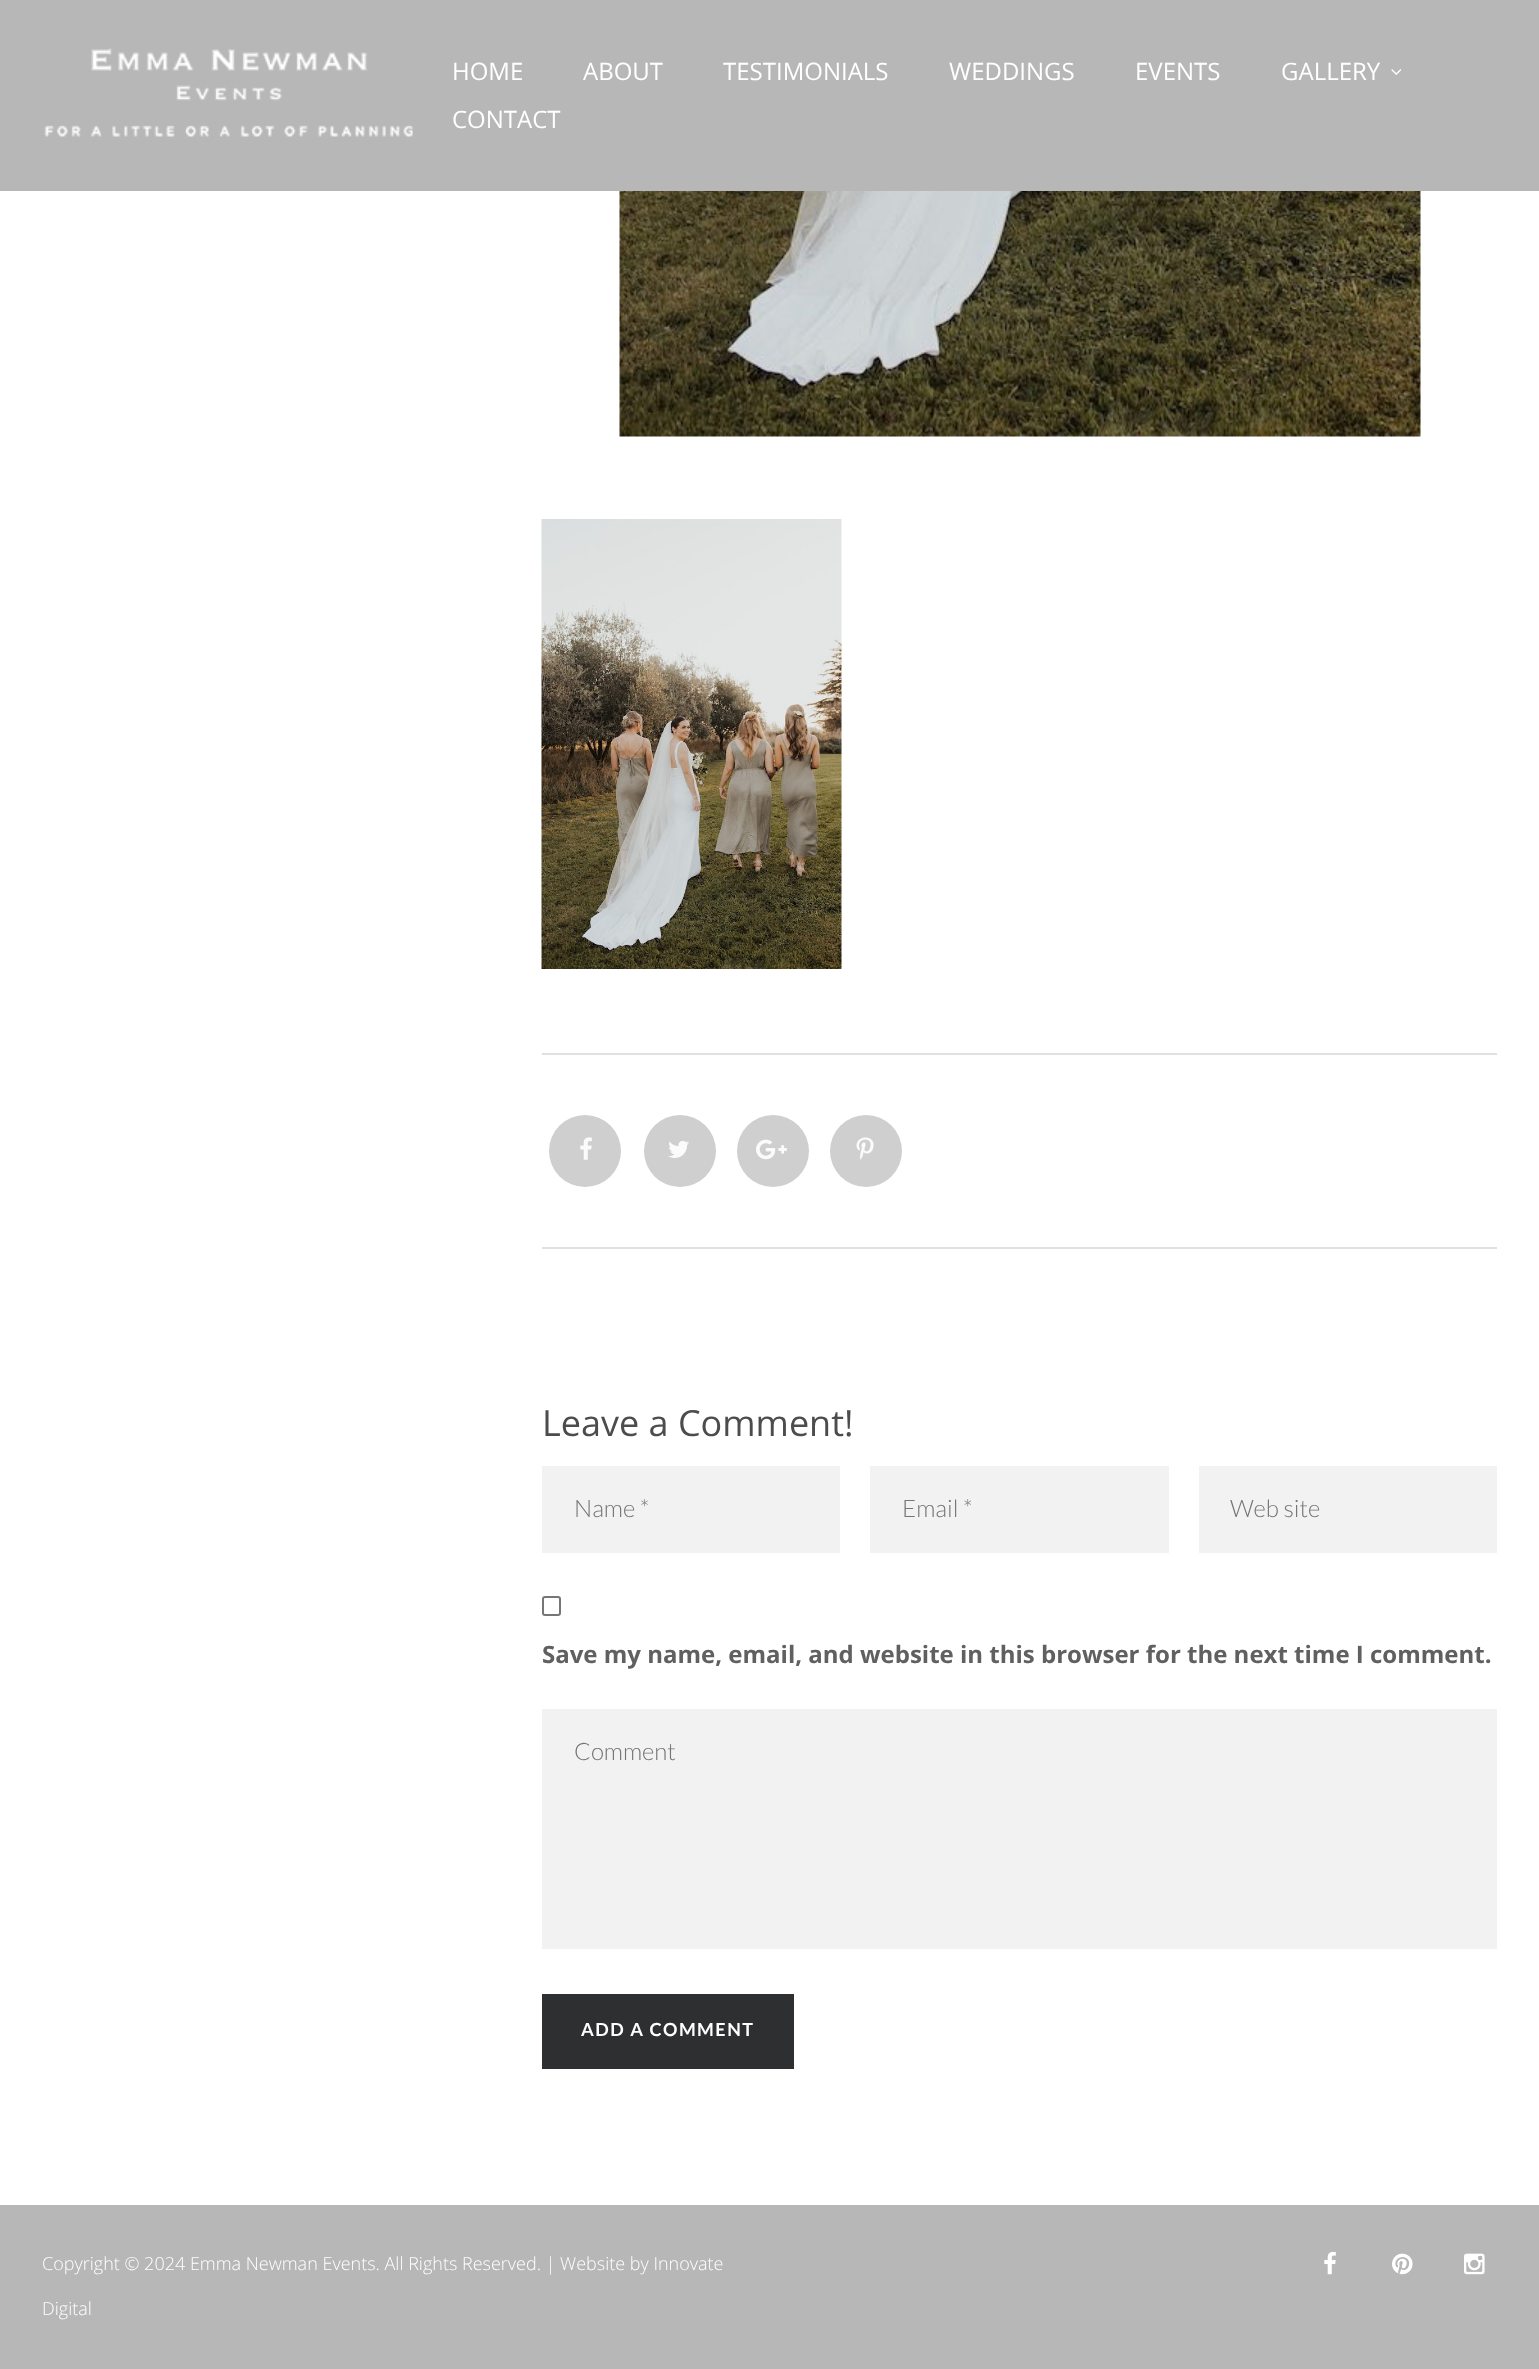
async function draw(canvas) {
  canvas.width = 1539
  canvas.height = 2369
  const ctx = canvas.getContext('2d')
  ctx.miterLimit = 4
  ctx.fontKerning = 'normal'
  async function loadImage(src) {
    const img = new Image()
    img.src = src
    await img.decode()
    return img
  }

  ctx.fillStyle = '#fff'
  ctx.fillRect(0, 0, 1539, 2369)
  ctx.fillStyle = '#b7b7b7'
  ctx.fillRect(0, 0, 1539, 191)
  ctx.drawImage(await loadImage('image0.png'), 44, 48, 369, 89)
  ctx.font = '24px Open Sans'
  ctx.fillStyle = '#fff'
  ctx.fillText('HOME', 452, 80)
  ctx.fillText('ABOUT', 583, 80)
  ctx.fillText('TESTIMONIALS', 723, 80)
  ctx.fillText('WEDDINGS', 949, 80)
  ctx.fillText('EVENTS', 1135, 80)
  ctx.fillText('GALLERY', 1281, 80)
  ctx.drawImage(await loadImage('image1.png'), 1391, 69, 11, 6)
  ctx.fillText('CONTACT', 452, 128)
  ctx.drawImage(await loadImage('image2.png'), 619, 191, 802, 246)
  ctx.drawImage(await loadImage('image3.png'), 541, 519, 301, 450)
  ctx.fillStyle = '#e0e0e0'
  ctx.fillRect(542, 1053, 955, 2)
  ctx.fillRect(542, 1247, 955, 2)
  ctx.fillStyle = '#cfcfcf'
  ctx.beginPath()
  ctx.arc(585, 1151, 36, 0, 2 * Math.PI)
  ctx.fill()
  ctx.drawImage(await loadImage('image4.png'), 580, 1137, 12, 23)
  ctx.beginPath()
  ctx.arc(680, 1151, 36, 0, 2 * Math.PI)
  ctx.fill()
  ctx.drawImage(await loadImage('image5.png'), 668, 1140, 21, 18)
  ctx.beginPath()
  ctx.arc(773, 1151, 36, 0, 2 * Math.PI)
  ctx.fill()
  ctx.drawImage(await loadImage('image6.png'), 756, 1139, 31, 21)
  ctx.beginPath()
  ctx.arc(866, 1151, 36, 0, 2 * Math.PI)
  ctx.fill()
  ctx.drawImage(await loadImage('image7.png'), 856, 1137, 18, 23)
  ctx.font = '36px Open Sans'
  ctx.fillStyle = '#4c4c4c'
  ctx.fillText('Leave a Comment!', 542, 1436)
  ctx.fillStyle = '#f2f2f2'
  ctx.fillRect(542, 1466, 298, 87)
  ctx.font = '300 24px Lato'
  ctx.fillStyle = '#757575'
  ctx.fillText('Name *', 574, 1517)
  ctx.fillStyle = '#f2f2f2'
  ctx.fillRect(870, 1466, 299, 87)
  ctx.fillStyle = '#757575'
  ctx.fillText('Email *', 902, 1517)
  ctx.fillStyle = '#f2f2f2'
  ctx.fillRect(1199, 1466, 298, 87)
  ctx.fillStyle = '#757575'
  ctx.fillText('Web site', 1230, 1517)
  ctx.beginPath()
  ctx.roundRect(543, 1597, 17, 18, 2)
  ctx.strokeStyle = '#767676'
  ctx.lineWidth = 2
  ctx.stroke()
  ctx.font = 'bold 24px Open Sans'
  ctx.fillStyle = '#606060'
  ctx.fillText('Save my name, email, and website in this browser for the next time I comment.', 542, 1663)
  ctx.fillStyle = '#f2f2f2'
  ctx.fillRect(542, 1709, 955, 240)
  ctx.font = '300 24px Lato'
  ctx.fillStyle = '#757575'
  ctx.fillText('Comment', 574, 1760)
  ctx.fillStyle = '#2d2f31'
  ctx.fillRect(542, 1994, 252, 75)
  ctx.letterSpacing = '1.5px'
  ctx.font = 'bold 18px Lato'
  ctx.fillStyle = '#fff'
  ctx.fillText('ADD A COMMENT', 581, 2036)
  ctx.fillStyle = '#b7b7b7'
  ctx.fillRect(0, 2205, 1539, 164)
  ctx.letterSpacing = '0px'
  ctx.font = '300 18px Open Sans'
  ctx.fillStyle = '#fff'
  ctx.fillText('Copyright © 2024 Emma Newman Events. All Rights Reserved. | Website by Innovate', 42, 2270)
  ctx.fillText('Digital', 42, 2315)
  ctx.drawImage(await loadImage('image8.png'), 1324, 2252, 12, 23)
  ctx.drawImage(await loadImage('image9.png'), 1392, 2253, 21, 22)
  ctx.drawImage(await loadImage('image10.png'), 1464, 2253, 21, 22)
}

draw(document.querySelector('canvas'))
